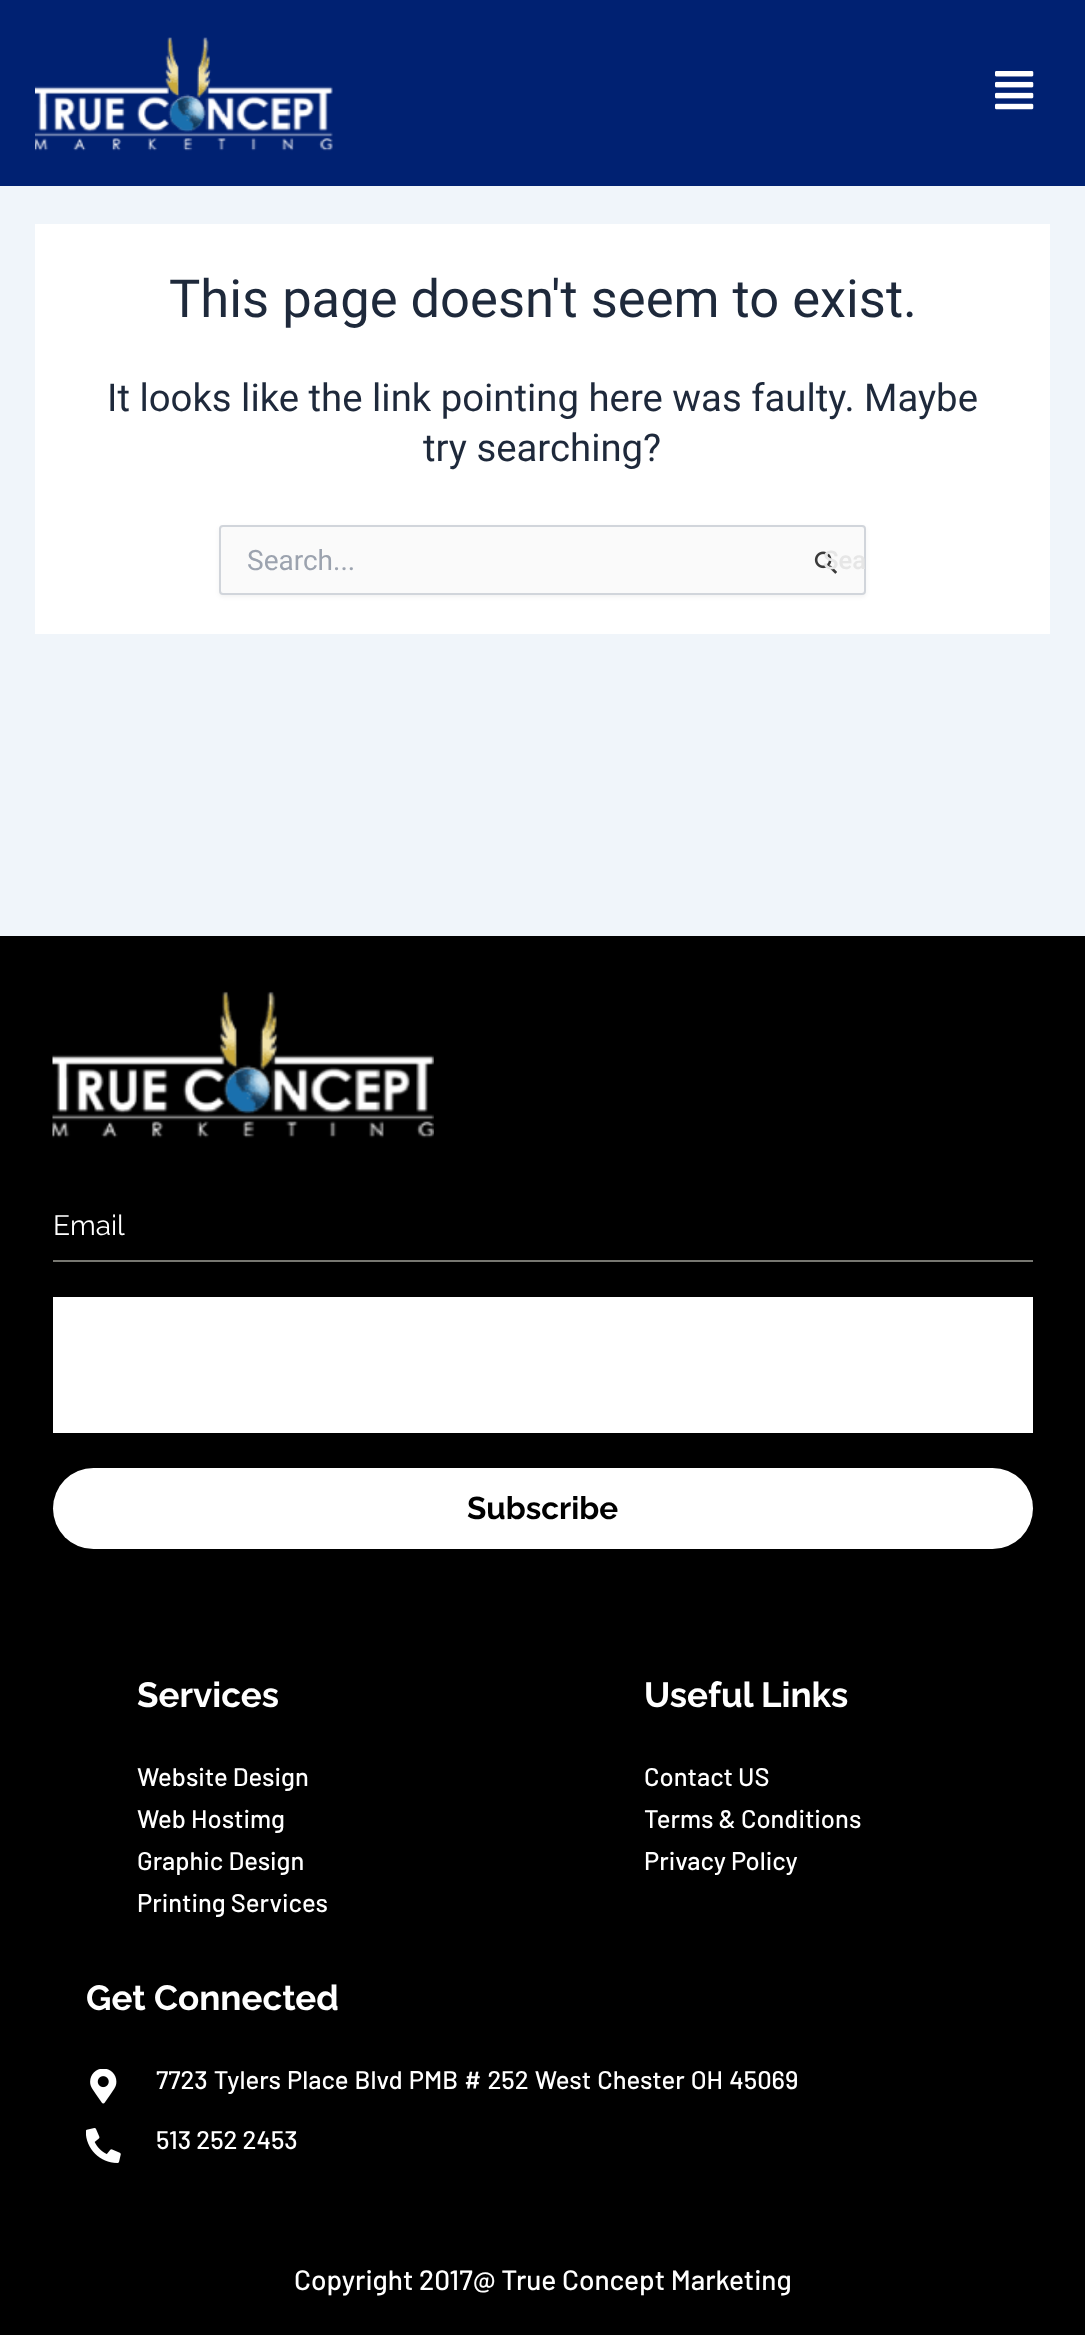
async function draw(canvas) {
  canvas.width = 1085
  canvas.height = 2335
  const ctx = canvas.getContext('2d')
  ctx.miterLimit = 4
  ctx.fontKerning = 'normal'
  async function loadImage(src) {
    const img = new Image()
    img.src = src
    await img.decode()
    return img
  }

  ctx.fillStyle = '#f0f5fa'
  ctx.fillRect(0, 0, 1085, 2335)
  ctx.fillStyle = '#002172'
  ctx.fillRect(0, 0, 1085, 186)
  ctx.drawImage(await loadImage('image0.png'), 35, 37, 298, 114)
  ctx.drawImage(await loadImage('image1.png'), 995, 71, 39, 39)
  ctx.fillStyle = '#fff'
  ctx.fillRect(35, 224, 1015, 410)
  ctx.font = '52.5px Roboto'
  ctx.fillStyle = '#1e293b'
  ctx.fillText('This page doesn\'t seem to exist.', 169, 317)
  ctx.font = '38.3px Roboto'
  ctx.fillText('It looks like the link pointing here was faulty. Maybe', 107, 411)
  ctx.fillText('try searching?', 423, 461)
  ctx.fillStyle = '#0000000d'
  ctx.filter = 'blur(2px)'
  ctx.beginPath()
  ctx.roundRect(219, 527, 647, 70, 4)
  ctx.fill()
  ctx.filter = 'none'
  ctx.fillStyle = '#fafafa'
  ctx.beginPath()
  ctx.roundRect(220, 526, 645, 68, 3)
  ctx.fill()
  ctx.strokeStyle = '#d1d5db'
  ctx.lineWidth = 2
  ctx.stroke()
  ctx.font = '28px Roboto'
  ctx.fillStyle = '#9ca3af'
  ctx.fillText('Search...', 247, 570)
  ctx.drawImage(await loadImage('image2.png'), 814, 551, 23, 23)
  ctx.font = '500 25.55px Roboto'
  ctx.fillStyle = '#e6e6e6'
  ctx.fillText('Sea', 823, 569)
  ctx.fillStyle = '#000'
  ctx.fillRect(0, 936, 1085, 1399)
  ctx.drawImage(await loadImage('image3.png'), 52, 991, 382, 147)
  ctx.fillStyle = '#777771'
  ctx.fillRect(53, 1260, 980, 2)
  ctx.font = '100 28px Raleway'
  ctx.fillStyle = '#fff'
  ctx.fillText('Email', 53, 1235)
  ctx.fillRect(53, 1297, 980, 136)
  ctx.beginPath()
  ctx.roundRect(53, 1468, 980, 81, 40.5)
  ctx.fill()
  ctx.font = 'bold 31.5px Raleway'
  ctx.fillStyle = '#000'
  ctx.fillText('Subscribe', 467, 1519)
  ctx.font = 'bold 35px Raleway'
  ctx.fillStyle = '#fff'
  ctx.fillText('Services', 137, 1707)
  ctx.font = '500 25.55px Barlow'
  ctx.fillText('Website Design', 137, 1786)
  ctx.fillText('Web Hostimg', 137, 1828)
  ctx.fillText('Graphic Design', 137, 1870)
  ctx.fillText('Printing Services', 137, 1912)
  ctx.font = 'bold 35px Raleway'
  ctx.fillText('Useful Links', 644, 1707)
  ctx.font = '500 25.55px Barlow'
  ctx.fillText('Contact US', 644, 1786)
  ctx.fillText('Terms & Conditions', 644, 1828)
  ctx.fillText('Privacy Policy', 644, 1870)
  ctx.font = 'bold 35px Raleway'
  ctx.fillText('Get Connected', 86, 2010)
  ctx.drawImage(await loadImage('image4.png'), 90, 2069, 27, 35)
  ctx.wordSpacing = '1px'
  ctx.font = '500 25.55px Barlow'
  ctx.fillText('7723 Tylers Place Blvd PMB # 252 West Chester OH 45069', 156, 2089)
  ctx.drawImage(await loadImage('image5.png'), 86, 2128, 35, 35)
  ctx.wordSpacing = '0px'
  ctx.fillText('513 252 2453', 156, 2149)
  ctx.font = '500 28px Barlow'
  ctx.fillText('Copyright 2017@ True Concept Marketing', 294, 2290)
}

draw(document.querySelector('canvas'))
